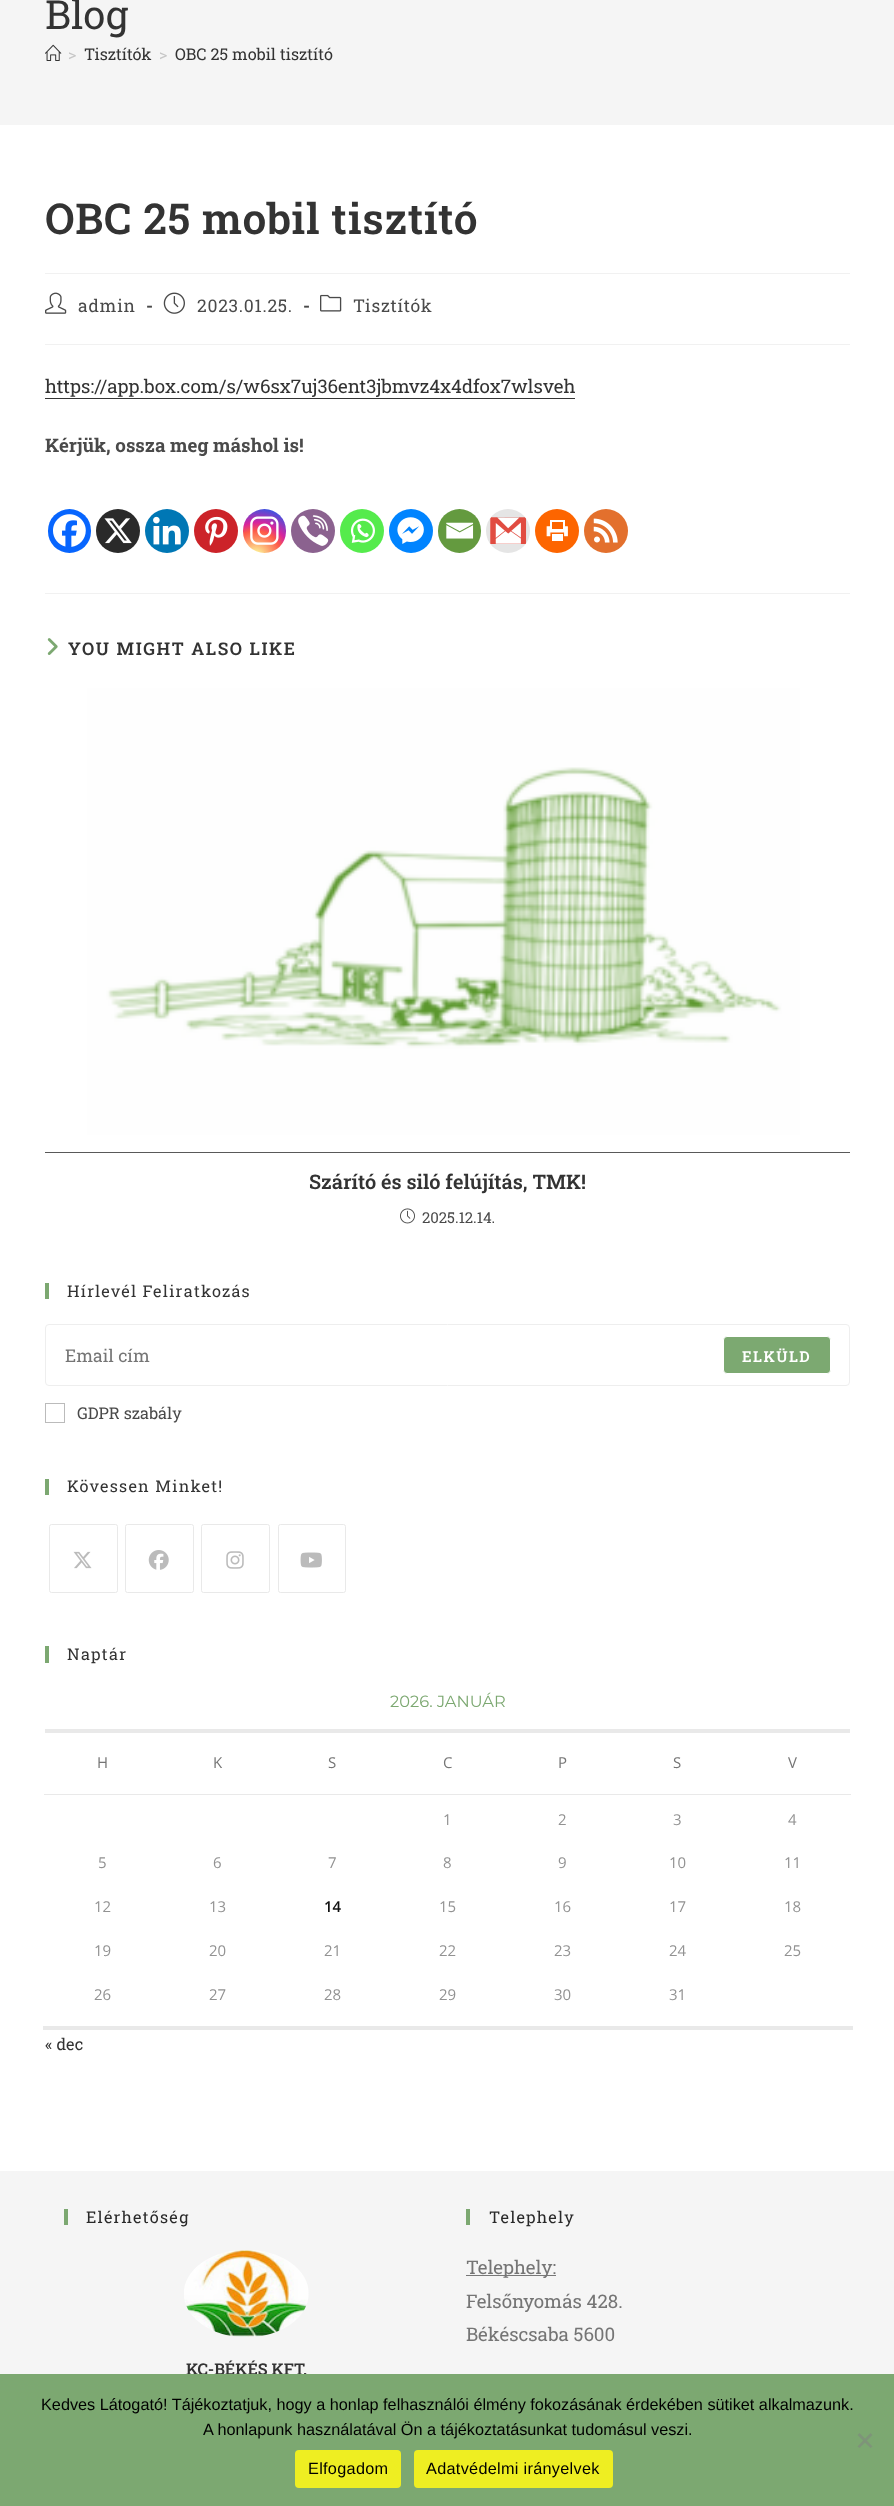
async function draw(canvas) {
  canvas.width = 894
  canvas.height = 2506
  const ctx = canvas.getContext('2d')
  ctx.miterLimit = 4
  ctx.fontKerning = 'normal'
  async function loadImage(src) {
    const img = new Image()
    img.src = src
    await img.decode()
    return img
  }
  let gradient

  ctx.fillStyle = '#fff'
  ctx.fillRect(0, 0, 894, 2506)
  ctx.fillStyle = '#f5f5f5'
  ctx.fillRect(0, 0, 894, 125)
  ctx.font = '40px Roboto Slab'
  ctx.fillStyle = '#333'
  ctx.fillText('Blog', 45, 29)
  ctx.drawImage(await loadImage('image0.png'), 45, 44, 17, 17)
  ctx.font = '16.25px Roboto Slab'
  ctx.fillStyle = '#c6c6c6'
  ctx.fillText('>', 68, 60)
  ctx.fillStyle = '#333'
  ctx.fillText('Tisztítók', 84, 60)
  ctx.fillStyle = '#c6c6c6'
  ctx.fillText('>', 159, 60)
  ctx.fillStyle = '#333'
  ctx.fillText('OBC 25 mobil tisztító', 175, 60)
  ctx.fillStyle = '#f1f1f1'
  ctx.fillRect(45, 273, 805, 1)
  ctx.letterSpacing = '0.75px'
  ctx.font = '600 42.5px Roboto Slab'
  ctx.fillStyle = '#333'
  ctx.fillText('OBC 25 mobil tisztító', 45, 234)
  ctx.fillStyle = '#f1f1f1'
  ctx.fillRect(45, 344, 805, 1)
  ctx.drawImage(await loadImage('image1.png'), 45, 292, 22, 22)
  ctx.font = '17.5px Roboto Slab'
  ctx.fillStyle = '#4a4a4a'
  ctx.fillText('admin', 78, 312)
  ctx.font = 'bold 17.5px Roboto Slab'
  ctx.fillText('-', 146, 312)
  ctx.drawImage(await loadImage('image2.png'), 163, 292, 22, 22)
  ctx.font = '17.5px Roboto Slab'
  ctx.fillText('2023.01.25.', 197, 312)
  ctx.font = 'bold 17.5px Roboto Slab'
  ctx.fillText('-', 303, 312)
  ctx.drawImage(await loadImage('image3.png'), 320, 294, 22, 18)
  ctx.font = '17.5px Roboto Slab'
  ctx.fillText('Tisztítók', 353, 312)
  ctx.letterSpacing = '0px'
  ctx.font = '18.75px Roboto Slab'
  ctx.fillStyle = '#333'
  ctx.fillText('https://app.box.com/s/w6sx7uj36ent3jbmvz4x4dfox7wlsveh', 45, 393)
  ctx.fillRect(45, 398, 530, 1)
  ctx.font = 'bold 18.75px Roboto Slab'
  ctx.fillStyle = '#4a4a4a'
  ctx.fillText('Kérjük, ossza meg máshol is!', 45, 452)
  ctx.fillStyle = '#0765fe'
  ctx.beginPath()
  ctx.roundRect(48, 509, 43, 44, 21.5)
  ctx.fill()
  ctx.drawImage(await loadImage('image4.png'), 53, 514, 33, 33)
  ctx.fillStyle = '#2a2a2a'
  ctx.beginPath()
  ctx.arc(118, 531, 22, 0, 2 * Math.PI)
  ctx.fill()
  ctx.drawImage(await loadImage('image5.png'), 104, 518, 28, 26)
  ctx.fillStyle = '#0077b5'
  ctx.beginPath()
  ctx.arc(167, 531, 22, 0, 2 * Math.PI)
  ctx.fill()
  ctx.drawImage(await loadImage('image6.png'), 153, 516, 28, 29)
  ctx.fillStyle = '#cc2329'
  ctx.beginPath()
  ctx.arc(216, 531, 22, 0, 2 * Math.PI)
  ctx.fill()
  ctx.drawImage(await loadImage('image7.png'), 205, 516, 23, 30)
  gradient = ctx.createRadialGradient(256, 556, 0, 256, 556, 56)
  gradient.addColorStop(0, '#fdf497')
  gradient.addColorStop(0.05, '#fdf497')
  gradient.addColorStop(0.45, '#fd5949')
  gradient.addColorStop(0.6, '#d6249f')
  gradient.addColorStop(0.9, '#285aeb')
  ctx.fillStyle = gradient
  ctx.beginPath()
  ctx.roundRect(243, 509, 43, 44, 21.5)
  ctx.fill()
  ctx.drawImage(await loadImage('image8.png'), 250, 516, 29, 29)
  ctx.fillStyle = '#8b628f'
  ctx.beginPath()
  ctx.arc(313, 531, 22, 0, 2 * Math.PI)
  ctx.fill()
  ctx.drawImage(await loadImage('image9.png'), 298, 515, 31, 31)
  ctx.fillStyle = '#55eb4c'
  ctx.beginPath()
  ctx.arc(362, 531, 22, 0, 2 * Math.PI)
  ctx.fill()
  ctx.drawImage(await loadImage('image10.png'), 350, 518, 25, 25)
  ctx.fillStyle = '#0084ff'
  ctx.beginPath()
  ctx.arc(411, 531, 22, 0, 2 * Math.PI)
  ctx.fill()
  ctx.drawImage(await loadImage('image11.png'), 397, 517, 27, 27)
  ctx.fillStyle = '#649a3f'
  ctx.beginPath()
  ctx.roundRect(438, 509, 43, 44, 21.5)
  ctx.fill()
  ctx.drawImage(await loadImage('image12.png'), 446, 522, 28, 17)
  ctx.fillStyle = '#e5e5e5'
  ctx.beginPath()
  ctx.arc(508, 531, 22, 0, 2 * Math.PI)
  ctx.fill()
  ctx.drawImage(await loadImage('image13.png'), 490, 517, 37, 27)
  ctx.fillStyle = '#fd6500'
  ctx.beginPath()
  ctx.arc(557, 531, 22, 0, 2 * Math.PI)
  ctx.fill()
  ctx.drawImage(await loadImage('image14.png'), 546, 520, 22, 21)
  ctx.fillStyle = '#e3702d'
  ctx.beginPath()
  ctx.arc(606, 531, 22, 0, 2 * Math.PI)
  ctx.fill()
  ctx.drawImage(await loadImage('image15.png'), 593, 518, 25, 25)
  ctx.fillStyle = '#f1f1f1'
  ctx.fillRect(45, 593, 805, 1)
  ctx.drawImage(await loadImage('image16.png'), 47, 638, 11, 17)
  ctx.letterSpacing = '1.6px'
  ctx.font = '600 17.5px Roboto Slab'
  ctx.fillStyle = '#333'
  ctx.fillText('YOU MIGHT ALSO LIKE', 68, 655)
  ctx.fillStyle = '#222'
  ctx.fillRect(45, 1152, 805, 1)
  ctx.drawImage(await loadImage('image17.png'), 45, 688, 805, 465)
  ctx.letterSpacing = '0px'
  ctx.font = '600 20px Roboto Slab'
  ctx.fillStyle = '#333'
  ctx.fillText('Szárító és siló felújítás, TMK!', 309, 1189)
  ctx.drawImage(await loadImage('image18.png'), 400, 1208, 15, 16)
  ctx.font = '15px Roboto Slab'
  ctx.fillStyle = '#4a4a4a'
  ctx.fillText('2025.12.14.', 422, 1223)
  ctx.fillStyle = '#7ca871'
  ctx.fillRect(45, 1283, 4, 16)
  ctx.letterSpacing = '1.25px'
  ctx.font = '16.25px Roboto Slab'
  ctx.fillStyle = '#333'
  ctx.fillText('Hírlevél Feliratkozás', 67, 1297)
  ctx.beginPath()
  ctx.roundRect(45.5, 1324.5, 804, 61, 3.5)
  ctx.strokeStyle = '#eee'
  ctx.stroke()
  ctx.letterSpacing = '0px'
  ctx.font = '17.5px Roboto Slab'
  ctx.fillStyle = '#757575'
  ctx.fillText('Email cím', 65, 1362)
  ctx.fillStyle = '#7ca971'
  ctx.beginPath()
  ctx.roundRect(723.5, 1336.5, 107, 37, 3.5)
  ctx.fill()
  ctx.strokeStyle = '#fff'
  ctx.stroke()
  ctx.letterSpacing = '1.5px'
  ctx.font = '600 15px Roboto Slab'
  ctx.fillStyle = '#fff'
  ctx.fillText('ELKÜLD', 742, 1362)
  ctx.strokeStyle = '#bbb'
  ctx.strokeRect(45.5, 1403.5, 19, 19)
  ctx.letterSpacing = '0px'
  ctx.font = '16.25px Roboto Slab'
  ctx.fillStyle = '#4a4a4a'
  ctx.fillText('GDPR szabály', 77, 1419)
  ctx.fillStyle = '#7ca871'
  ctx.fillRect(45, 1479, 4, 16)
  ctx.letterSpacing = '1.25px'
  ctx.fillStyle = '#333'
  ctx.fillText('Kövessen Minket!', 67, 1492)
  ctx.beginPath()
  ctx.roundRect(49.5, 1524.5, 68, 68, 2)
  ctx.strokeStyle = '#e9e9e9'
  ctx.stroke()
  ctx.drawImage(await loadImage('image19.png'), 73, 1551, 19, 18)
  ctx.beginPath()
  ctx.roundRect(125.5, 1524.5, 68, 68, 2)
  ctx.stroke()
  ctx.drawImage(await loadImage('image20.png'), 148, 1550, 21, 20)
  ctx.beginPath()
  ctx.roundRect(201.5, 1524.5, 68, 68, 2)
  ctx.stroke()
  ctx.drawImage(await loadImage('image21.png'), 226, 1551, 18, 18)
  ctx.beginPath()
  ctx.roundRect(278.5, 1524.5, 67, 68, 2)
  ctx.stroke()
  ctx.drawImage(await loadImage('image22.png'), 300, 1552, 22, 16)
  ctx.fillStyle = '#7ca871'
  ctx.fillRect(45, 1646, 4, 17)
  ctx.fillStyle = '#333'
  ctx.fillText('Naptár', 67, 1660)
  ctx.fillStyle = '#e9e9e9'
  ctx.fillRect(45, 1729, 805, 4)
  ctx.letterSpacing = '0px'
  ctx.font = '16.25px Montserrat'
  ctx.fillStyle = '#7ca871'
  ctx.fillText('2026. JANUÁR', 390, 1707)
  ctx.font = '15px Open Sans'
  ctx.fillStyle = '#757575'
  ctx.fillText('H', 97, 1768)
  ctx.fillText('K', 213, 1768)
  ctx.fillText('S', 328, 1768)
  ctx.fillText('C', 443, 1768)
  ctx.fillText('P', 558, 1768)
  ctx.fillText('S', 673, 1768)
  ctx.fillStyle = '#e9e9e9'
  ctx.fillRect(44, 1794, 807, 1)
  ctx.fillStyle = '#757575'
  ctx.fillText('V', 788, 1768)
  ctx.fillStyle = '#e9e9e9'
  ctx.fillRect(43, 2026, 810, 4)
  ctx.fillStyle = '#929292'
  ctx.fillText('1', 443, 1825)
  ctx.fillText('2', 558, 1825)
  ctx.fillText('3', 673, 1825)
  ctx.fillText('4', 788, 1825)
  ctx.fillText('5', 98, 1868)
  ctx.fillText('6', 213, 1868)
  ctx.fillText('7', 328, 1868)
  ctx.fillText('8', 443, 1868)
  ctx.fillText('9', 558, 1868)
  ctx.fillText('10', 669, 1868)
  ctx.fillText('11', 784, 1868)
  ctx.fillText('12', 94, 1912)
  ctx.fillText('13', 209, 1912)
  ctx.font = '600 15px Open Sans'
  ctx.fillStyle = '#111'
  ctx.fillText('14', 324, 1912)
  ctx.font = '15px Open Sans'
  ctx.fillStyle = '#929292'
  ctx.fillText('15', 439, 1912)
  ctx.fillText('16', 554, 1912)
  ctx.fillText('17', 669, 1912)
  ctx.fillText('18', 784, 1912)
  ctx.fillText('19', 94, 1956)
  ctx.fillText('20', 209, 1956)
  ctx.fillText('21', 324, 1956)
  ctx.fillText('22', 439, 1956)
  ctx.fillText('23', 554, 1956)
  ctx.fillText('24', 669, 1956)
  ctx.fillText('25', 784, 1956)
  ctx.fillText('26', 94, 2000)
  ctx.fillText('27', 209, 2000)
  ctx.fillText('28', 324, 2000)
  ctx.fillText('29', 439, 2000)
  ctx.fillText('30', 554, 2000)
  ctx.fillText('31', 669, 2000)
  ctx.font = '16.25px Roboto Slab'
  ctx.fillStyle = '#333'
  ctx.fillText('« dec', 45, 2050)
  ctx.fillStyle = '#f5f5f5'
  ctx.fillRect(0, 2171, 894, 203)
  ctx.fillStyle = '#7ca871'
  ctx.fillRect(64, 2209, 4, 16)
  ctx.letterSpacing = '1.25px'
  ctx.fillStyle = '#292929'
  ctx.fillText('Elérhetőség', 86, 2223)
  ctx.drawImage(await loadImage('image23.png'), 184, 2250, 125, 87)
  ctx.letterSpacing = '0px'
  ctx.font = '600 16.25px Roboto Slab'
  ctx.fillStyle = '#333'
  ctx.fillText('KC-BÉKÉS KFT.', 186, 2375)
  ctx.fillStyle = '#7ca871'
  ctx.fillRect(466, 2209, 4, 16)
  ctx.letterSpacing = '1.25px'
  ctx.font = '16.25px Roboto Slab'
  ctx.fillStyle = '#292929'
  ctx.fillText('Telephely', 489, 2223)
  ctx.fillStyle = '#777'
  ctx.fillRect(466, 2275, 90, 1)
  ctx.letterSpacing = '0px'
  ctx.font = '18.75px Roboto Slab'
  ctx.fillStyle = '#757575'
  ctx.fillText('Telephely:', 466, 2274)
  ctx.fillText('Felsőnyomás 428.', 466, 2308)
  ctx.fillText('Békéscsaba 5600', 466, 2341)
  ctx.fillStyle = '#7ca871'
  ctx.fillRect(0, 2374, 894, 132)
  ctx.font = '16.25px Liberation Sans'
  ctx.fillStyle = '#000'
  ctx.fillText('Kedves Látogató! Tájékoztatjuk, hogy a honlap felhasználói élmény fokozásának érdekében sütiket alkalmazunk.', 41, 2410)
  ctx.fillText('A honlapunk használatával Ön a tájékoztatásunkat tudomásul veszi.', 203, 2435)
  ctx.fillStyle = '#7e9479'
  ctx.beginPath()
  ctx.moveTo(870.5, 2433)
  ctx.lineTo(872.5, 2435)
  ctx.lineTo(859.5, 2448)
  ctx.lineTo(857.5, 2446.5)
  ctx.closePath()
  ctx.fill()
  ctx.beginPath()
  ctx.moveTo(857.5, 2435)
  ctx.lineTo(859.5, 2433)
  ctx.lineTo(872.5, 2446.5)
  ctx.lineTo(870.5, 2448)
  ctx.closePath()
  ctx.fill()
  ctx.fillStyle = '#ee2'
  ctx.beginPath()
  ctx.roundRect(295, 2450, 106, 38, 4)
  ctx.fill()
  ctx.letterSpacing = '0.3px'
  ctx.fillStyle = '#000'
  ctx.fillText('Elfogadom', 308, 2474)
  ctx.fillStyle = '#ee2'
  ctx.beginPath()
  ctx.roundRect(414, 2450, 199, 38, 4)
  ctx.fill()
  ctx.fillStyle = '#000'
  ctx.fillText('Adatvédelmi irányelvek', 426, 2474)
}

draw(document.querySelector('canvas'))
